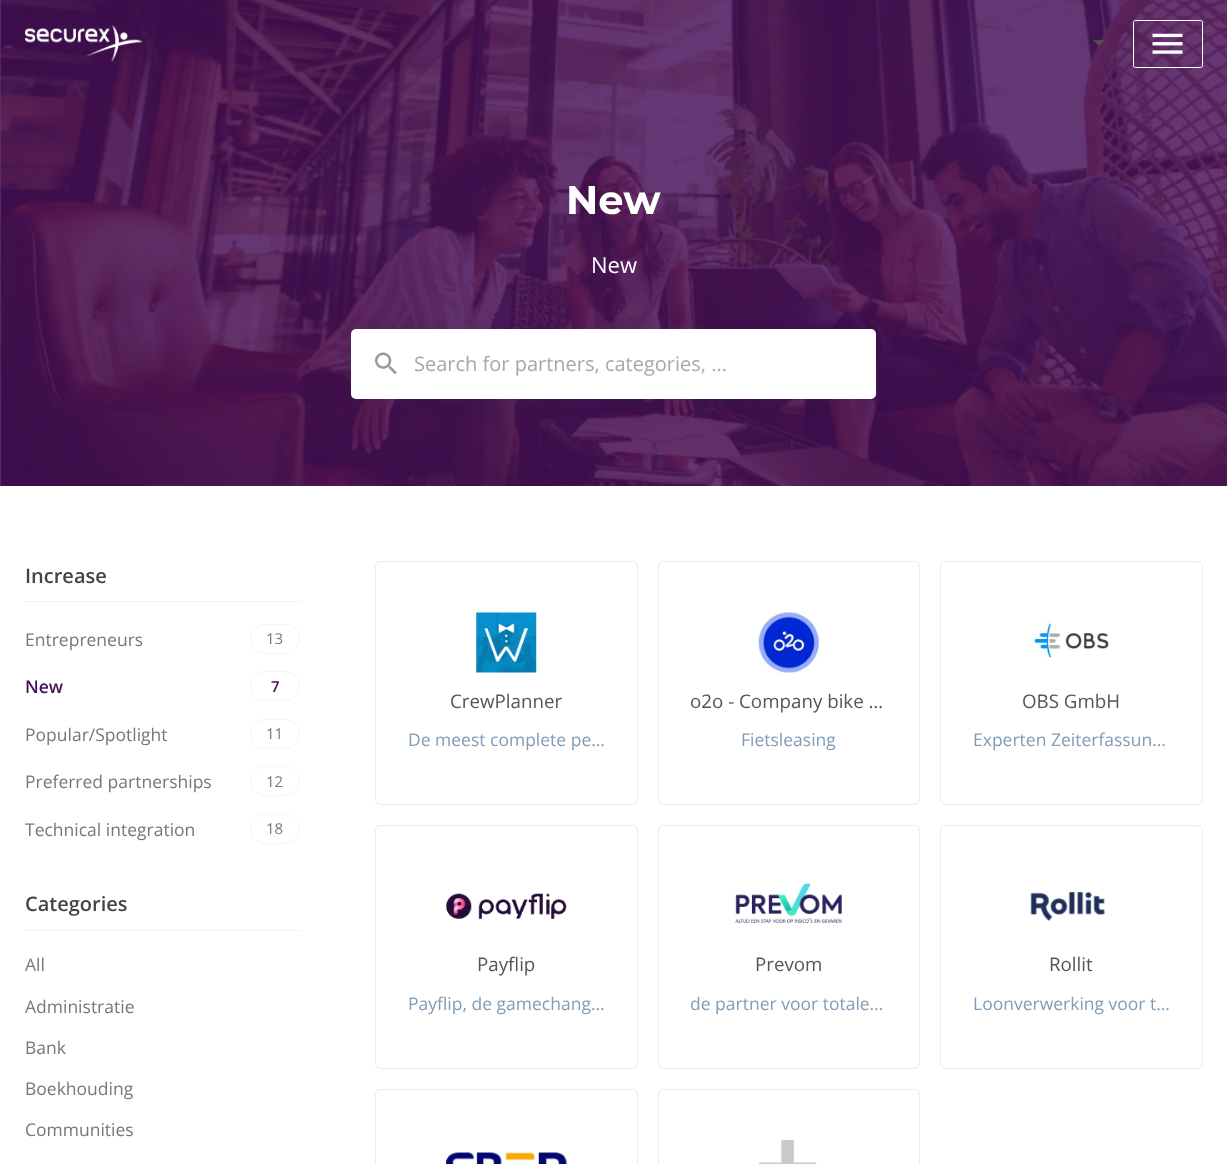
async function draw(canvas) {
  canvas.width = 1227
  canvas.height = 1164
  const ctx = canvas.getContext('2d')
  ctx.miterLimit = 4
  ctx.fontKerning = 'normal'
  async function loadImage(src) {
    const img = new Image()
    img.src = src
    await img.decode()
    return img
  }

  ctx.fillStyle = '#fff'
  ctx.fillRect(0, 0, 1227, 1164)
  ctx.drawImage(await loadImage('image0.png'), 0, 0, 1227, 486)
  ctx.drawImage(await loadImage('image1.png'), 25, 25, 118, 37)
  ctx.fillStyle = '#4d4d4d'
  ctx.beginPath()
  ctx.moveTo(1092.5, 40)
  ctx.lineTo(1099, 46)
  ctx.lineTo(1105, 40)
  ctx.closePath()
  ctx.fill()
  ctx.beginPath()
  ctx.roundRect(1133.5, 20.5, 69, 47, 2)
  ctx.strokeStyle = '#fff'
  ctx.stroke()
  ctx.drawImage(await loadImage('image2.png'), 1152, 33, 31, 21)
  ctx.font = 'bold 40px Montserrat'
  ctx.fillStyle = '#fff'
  ctx.fillText('New', 566, 214)
  ctx.font = '22px Open Sans'
  ctx.fillText('New', 591, 273)
  ctx.fillStyle = '#2b3b4c33'
  ctx.filter = 'blur(6px)'
  ctx.beginPath()
  ctx.roundRect(351, 331, 525, 70, 5)
  ctx.fill()
  ctx.filter = 'none'
  ctx.fillStyle = '#fff'
  ctx.beginPath()
  ctx.roundRect(351, 329, 525, 70, 5)
  ctx.fill()
  ctx.drawImage(await loadImage('image3.png'), 375, 352, 22, 23)
  ctx.font = '20px Open Sans'
  ctx.fillStyle = '#a7a7a7'
  ctx.fillText('Search for partners, categories, ...', 414, 371)
  ctx.fillStyle = '#f2f2f2'
  ctx.fillRect(25, 601, 275, 1)
  ctx.font = '600 20px Open Sans'
  ctx.fillStyle = '#444'
  ctx.fillText('Increase', 25, 583)
  ctx.font = '17.5px Open Sans'
  ctx.fillStyle = '#777'
  ctx.fillText('Entrepreneurs', 25, 646)
  ctx.beginPath()
  ctx.roundRect(250.5, 624.5, 49, 29, 14.5)
  ctx.strokeStyle = '#f5f5f5'
  ctx.stroke()
  ctx.font = '15px Open Sans'
  ctx.fillText('13', 266, 644)
  ctx.font = '600 17.5px Open Sans'
  ctx.fillStyle = '#481059'
  ctx.fillText('New', 25, 693)
  ctx.beginPath()
  ctx.roundRect(250.5, 671.5, 49, 29, 14.5)
  ctx.stroke()
  ctx.font = '600 15px Open Sans'
  ctx.fillText('7', 271, 692)
  ctx.font = '17.5px Open Sans'
  ctx.fillStyle = '#777'
  ctx.fillText('Popular/Spotlight', 25, 741)
  ctx.beginPath()
  ctx.roundRect(250.5, 719.5, 49, 29, 14.5)
  ctx.stroke()
  ctx.font = '15px Open Sans'
  ctx.fillText('11', 266, 739)
  ctx.font = '17.5px Open Sans'
  ctx.fillText('Preferred partnerships', 25, 788)
  ctx.beginPath()
  ctx.roundRect(250.5, 766.5, 49, 29, 14.5)
  ctx.stroke()
  ctx.font = '15px Open Sans'
  ctx.fillText('12', 266, 787)
  ctx.font = '17.5px Open Sans'
  ctx.fillText('Technical integration', 25, 836)
  ctx.beginPath()
  ctx.roundRect(250.5, 814.5, 49, 29, 14.5)
  ctx.stroke()
  ctx.font = '15px Open Sans'
  ctx.fillText('18', 266, 834)
  ctx.fillStyle = '#f2f2f2'
  ctx.fillRect(25, 930, 275, 1)
  ctx.font = '600 20px Open Sans'
  ctx.fillStyle = '#444'
  ctx.fillText('Categories', 25, 911)
  ctx.font = '17.5px Open Sans'
  ctx.fillStyle = '#777'
  ctx.fillText('All', 25, 971)
  ctx.fillText('Administratie', 25, 1013)
  ctx.fillText('Bank', 25, 1054)
  ctx.fillText('Boekhouding', 25, 1095)
  ctx.fillText('Communities', 25, 1136)
  ctx.beginPath()
  ctx.roundRect(375.5, 561.5, 262, 243, 5.5)
  ctx.strokeStyle = '#e9ebed'
  ctx.stroke()
  ctx.drawImage(await loadImage('image4.png'), 476, 612, 61, 61)
  ctx.font = '18.75px Open Sans'
  ctx.fillStyle = '#555'
  ctx.fillText('CrewPlanner', 450, 708)
  ctx.font = '17.5px Open Sans'
  ctx.fillStyle = '#809cb6'
  ctx.fillText('De meest complete pe…', 408, 746)
  ctx.beginPath()
  ctx.roundRect(658.5, 561.5, 261, 243, 5.5)
  ctx.stroke()
  ctx.drawImage(await loadImage('image5.png'), 758, 612, 61, 61)
  ctx.font = '18.75px Open Sans'
  ctx.fillStyle = '#555'
  ctx.fillText('o2o - Company bike …', 690, 708)
  ctx.font = '17.5px Open Sans'
  ctx.fillStyle = '#809cb6'
  ctx.fillText('Fietsleasing', 741, 746)
  ctx.beginPath()
  ctx.roundRect(940.5, 561.5, 262, 243, 5.5)
  ctx.stroke()
  ctx.drawImage(await loadImage('image6.png'), 1030, 619, 79, 42)
  ctx.font = '18.75px Open Sans'
  ctx.fillStyle = '#555'
  ctx.fillText('OBS GmbH', 1022, 708)
  ctx.font = '17.5px Open Sans'
  ctx.fillStyle = '#809cb6'
  ctx.fillText('Experten Zeiterfassun…', 973, 746)
  ctx.beginPath()
  ctx.roundRect(375.5, 825.5, 262, 243, 5.5)
  ctx.stroke()
  ctx.drawImage(await loadImage('image7.png'), 446, 893, 121, 26)
  ctx.font = '18.75px Open Sans'
  ctx.fillStyle = '#555'
  ctx.fillText('Payflip', 477, 971)
  ctx.font = '17.5px Open Sans'
  ctx.fillStyle = '#809cb6'
  ctx.fillText('Payflip, de gamechang…', 408, 1010)
  ctx.beginPath()
  ctx.roundRect(658.5, 825.5, 261, 243, 5.5)
  ctx.stroke()
  ctx.drawImage(await loadImage('image8.png'), 735, 883, 107, 40)
  ctx.font = '18.75px Open Sans'
  ctx.fillStyle = '#555'
  ctx.fillText('Prevom', 755, 971)
  ctx.font = '17.5px Open Sans'
  ctx.fillStyle = '#809cb6'
  ctx.fillText('de partner voor totale…', 690, 1010)
  ctx.beginPath()
  ctx.roundRect(940.5, 825.5, 262, 243, 5.5)
  ctx.stroke()
  ctx.drawImage(await loadImage('image9.png'), 1030, 892, 75, 29)
  ctx.font = '18.75px Open Sans'
  ctx.fillStyle = '#555'
  ctx.fillText('Rollit', 1049, 971)
  ctx.font = '17.5px Open Sans'
  ctx.fillStyle = '#809cb6'
  ctx.fillText('Loonverwerking voor t…', 973, 1010)
  ctx.beginPath()
  ctx.roundRect(375.5, 1089.5, 262, 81, 5.5)
  ctx.stroke()
  ctx.drawImage(await loadImage('image10.png'), 446, 1152, 121, 12)
  ctx.beginPath()
  ctx.roundRect(658.5, 1089.5, 261, 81, 5.5)
  ctx.stroke()
  ctx.drawImage(await loadImage('image11.png'), 759, 1140, 58, 24)
}

draw(document.querySelector('canvas'))
